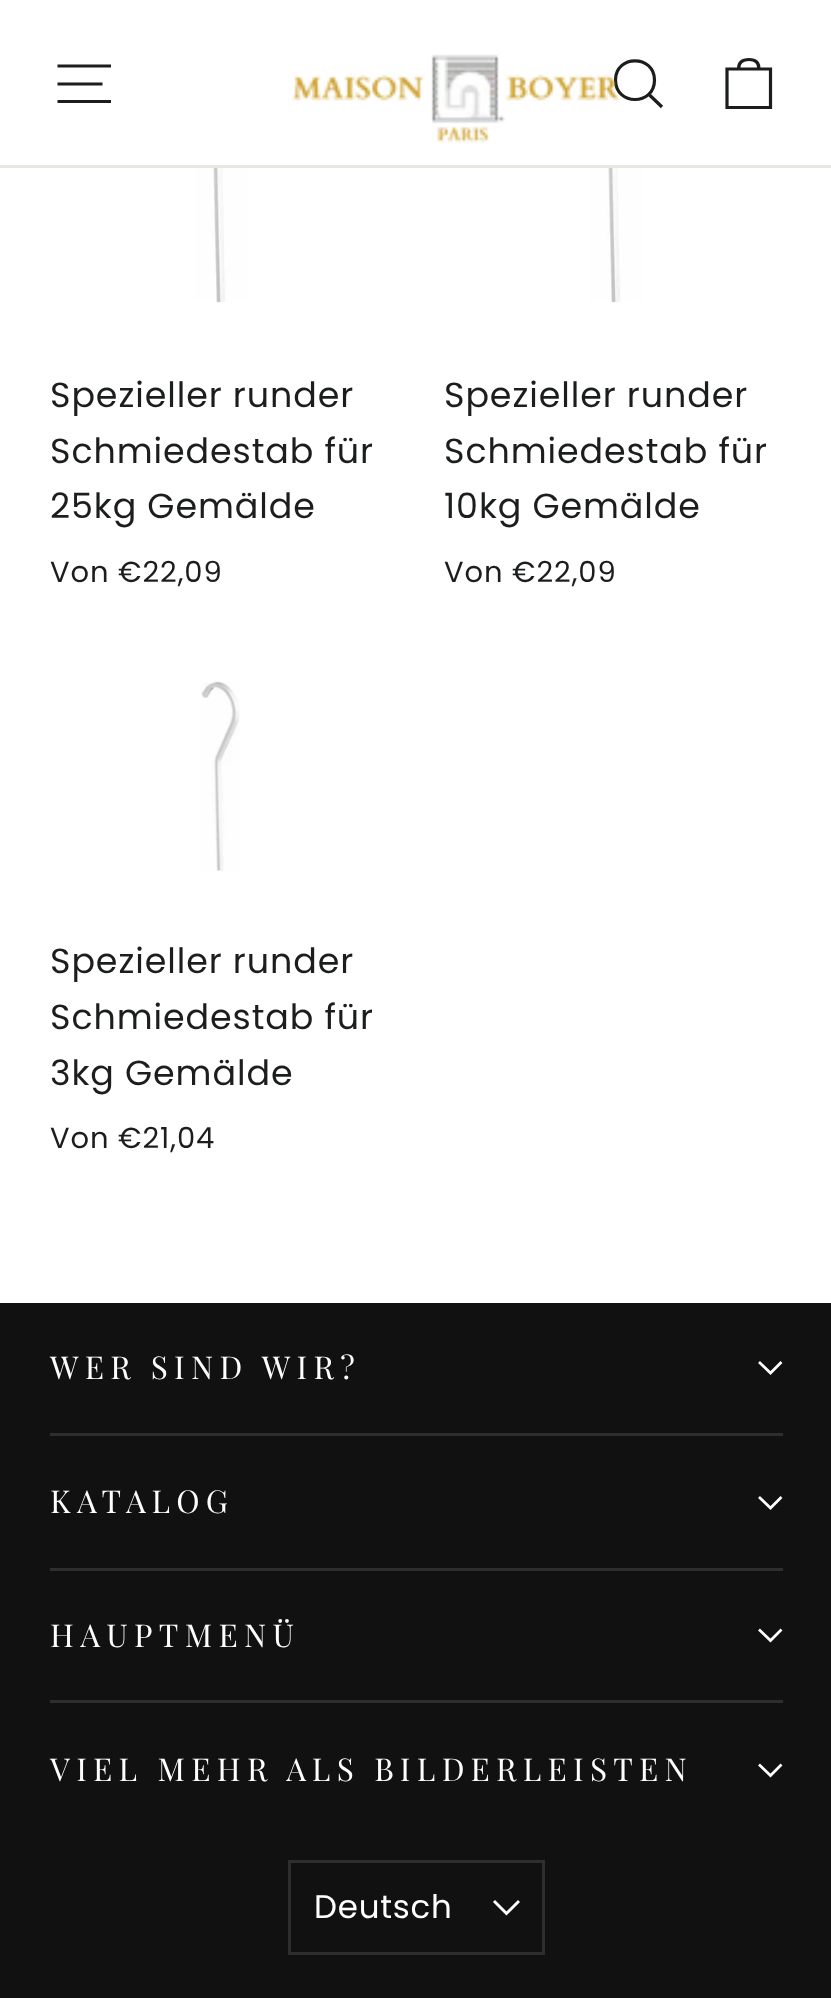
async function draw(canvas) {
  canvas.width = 831
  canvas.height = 1998
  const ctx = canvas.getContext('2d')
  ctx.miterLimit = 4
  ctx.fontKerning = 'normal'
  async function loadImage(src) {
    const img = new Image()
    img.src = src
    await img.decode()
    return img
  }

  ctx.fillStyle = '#fff'
  ctx.fillRect(0, 0, 831, 1998)
  ctx.fillStyle = '#e8e8e1'
  ctx.fillRect(0, 165, 831, 3)
  ctx.beginPath()
  ctx.moveTo(57.5, 66)
  ctx.lineTo(111, 66)
  ctx.moveTo(57.5, 84)
  ctx.lineTo(102.5, 84)
  ctx.moveTo(57.5, 101.5)
  ctx.lineTo(111, 101.5)
  ctx.strokeStyle = '#1c1d1d'
  ctx.lineWidth = 3.2
  ctx.stroke()
  ctx.beginPath()
  ctx.moveTo(654.5, 80)
  ctx.bezierCurveTo(654.5, 106, 615.5, 106, 615.5, 80)
  ctx.bezierCurveTo(615.5, 54.5, 654.5, 54.5, 654.5, 80)
  ctx.closePath()
  ctx.moveTo(662, 107)
  ctx.lineTo(649, 94.5)
  ctx.stroke()
  ctx.drawImage(await loadImage('image0.png'), 292, 54, 328, 89)
  ctx.beginPath()
  ctx.moveTo(727, 69)
  ctx.lineTo(770.5, 69)
  ctx.lineTo(770.5, 107.5)
  ctx.lineTo(727, 107.5)
  ctx.closePath()
  ctx.moveTo(738.5, 69)
  ctx.bezierCurveTo(738.5, 61.5, 743, 59.5, 749, 59.5)
  ctx.bezierCurveTo(754.5, 59.5, 759, 61.5, 759, 69)
  ctx.stroke()
  ctx.drawImage(await loadImage('image1.png'), 194, 168, 54, 135)
  ctx.letterSpacing = '0.9px'
  ctx.font = '34.9px Poppins'
  ctx.fillStyle = '#1c1d1d'
  ctx.fillText('Spezieller runder', 50, 407)
  ctx.fillText('Schmiedestab für', 50, 463)
  ctx.fillText('25kg Gemälde', 50, 518)
  ctx.font = '29px Poppins'
  ctx.fillText('Von €22,09', 50, 582)
  ctx.drawImage(await loadImage('image1.png'), 589, 168, 54, 135)
  ctx.font = '34.9px Poppins'
  ctx.fillText('Spezieller runder', 444, 407)
  ctx.fillText('Schmiedestab für', 444, 463)
  ctx.fillText('10kg Gemälde', 444, 518)
  ctx.font = '29px Poppins'
  ctx.fillText('Von €22,09', 444, 582)
  ctx.drawImage(await loadImage('image2.png'), 201, 681, 39, 190)
  ctx.font = '34.9px Poppins'
  ctx.fillText('Spezieller runder', 50, 973)
  ctx.fillText('Schmiedestab für', 50, 1029)
  ctx.fillText('3kg Gemälde', 50, 1085)
  ctx.font = '29px Poppins'
  ctx.fillText('Von €21,04', 50, 1148)
  ctx.fillStyle = '#111'
  ctx.fillRect(0, 1303, 831, 695)
  ctx.letterSpacing = '6.3px'
  ctx.font = '31.5px Playfair Display'
  ctx.fillStyle = '#fff'
  ctx.fillText('WER SIND WIR?', 50, 1379)
  ctx.beginPath()
  ctx.moveTo(759, 1362)
  ctx.lineTo(770.5, 1373)
  ctx.lineTo(781.5, 1362)
  ctx.strokeStyle = '#fff'
  ctx.lineWidth = 2.7
  ctx.stroke()
  ctx.fillStyle = '#2e2e2e'
  ctx.fillRect(50, 1433, 733, 3)
  ctx.fillStyle = '#fff'
  ctx.fillText('KATALOG', 50, 1513)
  ctx.beginPath()
  ctx.moveTo(759, 1497)
  ctx.lineTo(770.5, 1508)
  ctx.lineTo(781.5, 1497)
  ctx.stroke()
  ctx.fillStyle = '#2e2e2e'
  ctx.fillRect(50, 1568, 733, 3)
  ctx.fillStyle = '#fff'
  ctx.fillText('HAUPTMENÜ', 50, 1647)
  ctx.beginPath()
  ctx.moveTo(759, 1629.5)
  ctx.lineTo(770.5, 1640.5)
  ctx.lineTo(781.5, 1629.5)
  ctx.stroke()
  ctx.fillStyle = '#2e2e2e'
  ctx.fillRect(50, 1700, 733, 3)
  ctx.fillStyle = '#fff'
  ctx.fillText('VIEL MEHR ALS BILDERLEISTEN', 50, 1781)
  ctx.beginPath()
  ctx.moveTo(759, 1764.5)
  ctx.lineTo(770.5, 1775.5)
  ctx.lineTo(781.5, 1764.5)
  ctx.stroke()
  ctx.strokeStyle = '#2e2e2e'
  ctx.lineWidth = 3
  ctx.strokeRect(289.5, 1861.5, 254, 92)
  ctx.letterSpacing = '0.75px'
  ctx.font = '32.5px Poppins'
  ctx.fillText('Deutsch', 314, 1918)
  ctx.beginPath()
  ctx.moveTo(494, 1901)
  ctx.lineTo(506.5, 1913.5)
  ctx.lineTo(519, 1901)
  ctx.strokeStyle = '#fff'
  ctx.lineWidth = 2.9
  ctx.stroke()
}

draw(document.querySelector('canvas'))
